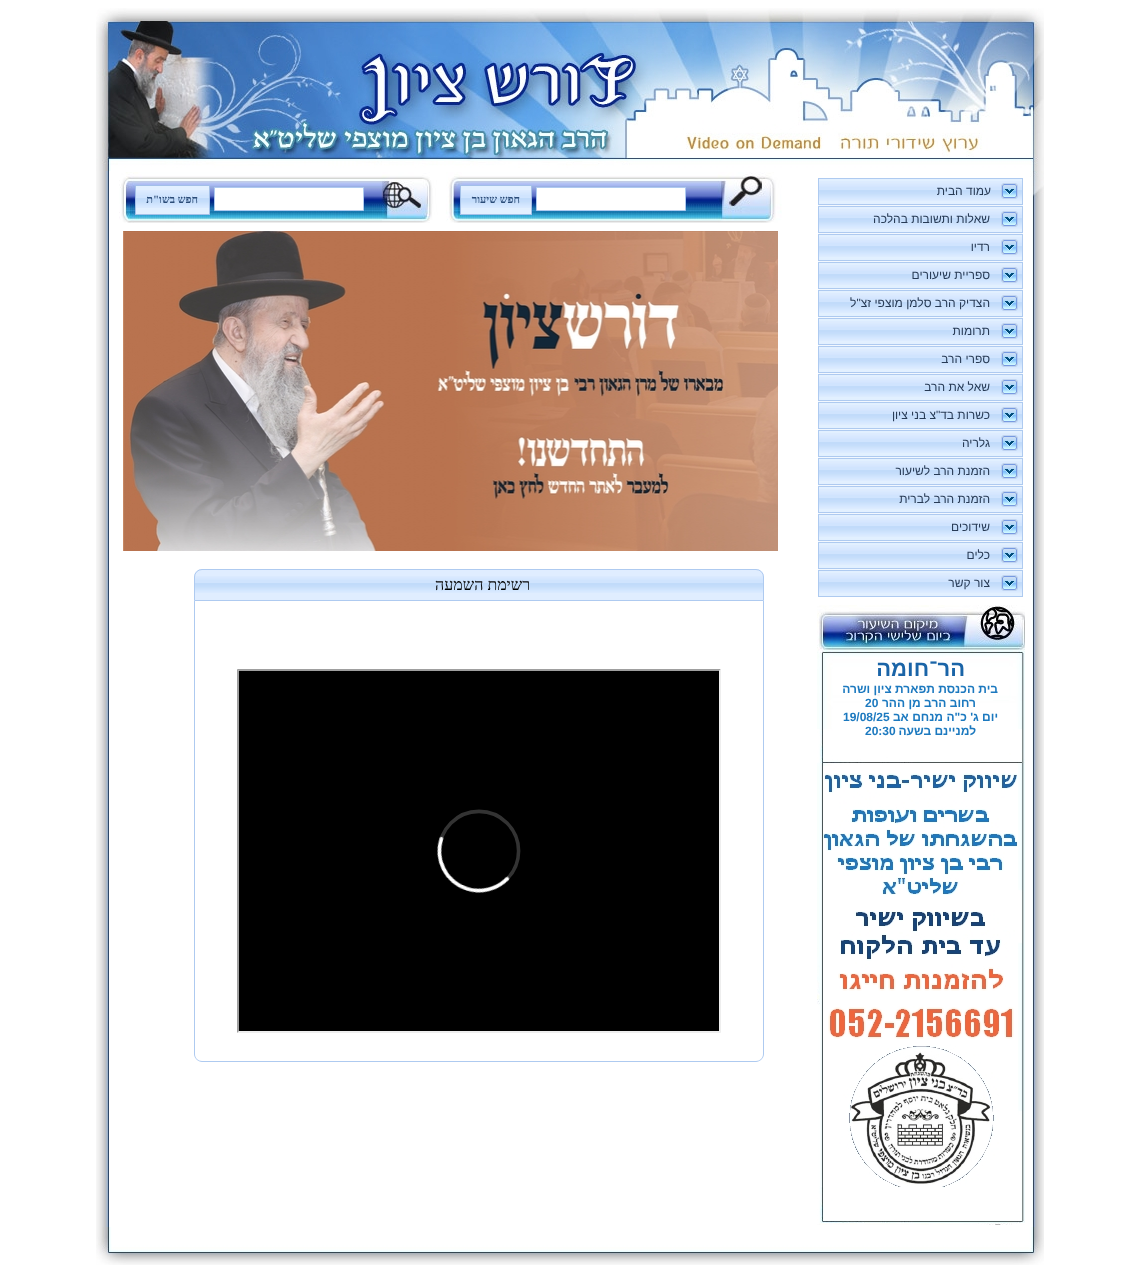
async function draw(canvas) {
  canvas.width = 1139
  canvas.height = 1283
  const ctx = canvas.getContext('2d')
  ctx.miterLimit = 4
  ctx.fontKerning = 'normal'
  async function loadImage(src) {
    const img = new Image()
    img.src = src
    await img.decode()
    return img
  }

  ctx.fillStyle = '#fff'
  ctx.fillRect(0, 0, 1139, 1283)
  ctx.drawImage(await loadImage('image0.png'), 96, 8, 948, 163)
  ctx.drawImage(await loadImage('image1.png'), 1032, 198, 12, 1029)
  ctx.drawImage(await loadImage('image2.png'), 1030, 171, 14, 27)
  ctx.fillStyle = '#f2f8ff'
  ctx.fillRect(818, 205, 205, 365)
  ctx.fillStyle = '#e2f0ff'
  ctx.fillRect(819, 179, 203, 25)
  ctx.drawImage(await loadImage('image3.png'), 819, 181, 203, 20)
  ctx.strokeStyle = '#aecaf0'
  ctx.strokeRect(818.5, 178.5, 204, 26)
  ctx.drawImage(await loadImage('image4.png'), 1001, 183, 17, 16)
  ctx.direction = 'rtl'
  ctx.font = '12px Liberation Sans'
  ctx.fillStyle = '#283b56'
  ctx.fillText('עמוד הבית', 991, 195)
  ctx.fillStyle = '#e2f0ff'
  ctx.fillRect(819, 207, 203, 25)
  ctx.drawImage(await loadImage('image3.png'), 819, 209, 203, 20)
  ctx.strokeRect(818.5, 206.5, 204, 26)
  ctx.drawImage(await loadImage('image4.png'), 1001, 211, 17, 16)
  ctx.fillStyle = '#283b56'
  ctx.fillText('שאלות ותשובות בהלכה', 990, 223)
  ctx.fillStyle = '#e2f0ff'
  ctx.fillRect(819, 235, 203, 25)
  ctx.drawImage(await loadImage('image3.png'), 819, 237, 203, 20)
  ctx.strokeRect(818.5, 234.5, 204, 26)
  ctx.drawImage(await loadImage('image4.png'), 1001, 239, 17, 16)
  ctx.fillStyle = '#283b56'
  ctx.fillText('רדיו', 990, 251)
  ctx.fillStyle = '#e2f0ff'
  ctx.fillRect(819, 263, 203, 25)
  ctx.drawImage(await loadImage('image3.png'), 819, 265, 203, 20)
  ctx.strokeRect(818.5, 262.5, 204, 26)
  ctx.drawImage(await loadImage('image4.png'), 1001, 267, 17, 16)
  ctx.fillStyle = '#283b56'
  ctx.fillText('ספריית שיעורים', 990, 279)
  ctx.fillStyle = '#e2f0ff'
  ctx.fillRect(819, 291, 203, 25)
  ctx.drawImage(await loadImage('image3.png'), 819, 293, 203, 20)
  ctx.strokeRect(818.5, 290.5, 204, 26)
  ctx.drawImage(await loadImage('image4.png'), 1001, 295, 17, 16)
  ctx.fillStyle = '#283b56'
  ctx.fillText('הצדיק הרב סלמן מוצפי זצ"ל', 990, 307)
  ctx.fillStyle = '#e2f0ff'
  ctx.fillRect(819, 319, 203, 25)
  ctx.drawImage(await loadImage('image3.png'), 819, 321, 203, 20)
  ctx.strokeRect(818.5, 318.5, 204, 26)
  ctx.drawImage(await loadImage('image4.png'), 1001, 323, 17, 16)
  ctx.fillStyle = '#283b56'
  ctx.fillText('תרומות', 990, 335)
  ctx.fillStyle = '#e2f0ff'
  ctx.fillRect(819, 347, 203, 25)
  ctx.drawImage(await loadImage('image3.png'), 819, 349, 203, 20)
  ctx.strokeRect(818.5, 346.5, 204, 26)
  ctx.drawImage(await loadImage('image4.png'), 1001, 351, 17, 16)
  ctx.fillStyle = '#283b56'
  ctx.fillText('ספרי הרב', 990, 363)
  ctx.fillStyle = '#e2f0ff'
  ctx.fillRect(819, 375, 203, 25)
  ctx.drawImage(await loadImage('image3.png'), 819, 377, 203, 20)
  ctx.strokeRect(818.5, 374.5, 204, 26)
  ctx.drawImage(await loadImage('image4.png'), 1001, 379, 17, 16)
  ctx.fillStyle = '#283b56'
  ctx.fillText('שאל את הרב', 990, 391)
  ctx.fillStyle = '#e2f0ff'
  ctx.fillRect(819, 403, 203, 25)
  ctx.drawImage(await loadImage('image3.png'), 819, 405, 203, 20)
  ctx.strokeRect(818.5, 402.5, 204, 26)
  ctx.drawImage(await loadImage('image4.png'), 1001, 407, 17, 16)
  ctx.fillStyle = '#283b56'
  ctx.fillText('כשרות בד"צ בני ציון', 990, 419)
  ctx.fillStyle = '#e2f0ff'
  ctx.fillRect(819, 431, 203, 25)
  ctx.drawImage(await loadImage('image3.png'), 819, 433, 203, 20)
  ctx.strokeRect(818.5, 430.5, 204, 26)
  ctx.drawImage(await loadImage('image4.png'), 1001, 435, 17, 16)
  ctx.fillStyle = '#283b56'
  ctx.fillText('גלריה', 990, 447)
  ctx.fillStyle = '#e2f0ff'
  ctx.fillRect(819, 459, 203, 25)
  ctx.drawImage(await loadImage('image3.png'), 819, 461, 203, 20)
  ctx.strokeRect(818.5, 458.5, 204, 26)
  ctx.drawImage(await loadImage('image4.png'), 1001, 463, 17, 16)
  ctx.fillStyle = '#283b56'
  ctx.fillText('הזמנת הרב לשיעור', 990, 475)
  ctx.fillStyle = '#e2f0ff'
  ctx.fillRect(819, 487, 203, 25)
  ctx.drawImage(await loadImage('image3.png'), 819, 489, 203, 20)
  ctx.strokeRect(818.5, 486.5, 204, 26)
  ctx.drawImage(await loadImage('image4.png'), 1001, 491, 17, 16)
  ctx.fillStyle = '#283b56'
  ctx.fillText('הזמנת הרב לברית', 990, 503)
  ctx.fillStyle = '#e2f0ff'
  ctx.fillRect(819, 515, 203, 25)
  ctx.drawImage(await loadImage('image3.png'), 819, 517, 203, 20)
  ctx.strokeRect(818.5, 514.5, 204, 26)
  ctx.drawImage(await loadImage('image4.png'), 1001, 519, 17, 16)
  ctx.fillStyle = '#283b56'
  ctx.fillText('שידוכים', 990, 531)
  ctx.fillStyle = '#e2f0ff'
  ctx.fillRect(819, 543, 203, 25)
  ctx.drawImage(await loadImage('image3.png'), 819, 545, 203, 20)
  ctx.strokeRect(818.5, 542.5, 204, 26)
  ctx.drawImage(await loadImage('image4.png'), 1001, 547, 17, 16)
  ctx.fillStyle = '#283b56'
  ctx.fillText('כלים', 990, 559)
  ctx.fillStyle = '#e2f0ff'
  ctx.fillRect(819, 571, 203, 25)
  ctx.drawImage(await loadImage('image3.png'), 819, 573, 203, 20)
  ctx.strokeRect(818.5, 570.5, 204, 26)
  ctx.drawImage(await loadImage('image4.png'), 1001, 575, 17, 16)
  ctx.fillStyle = '#283b56'
  ctx.fillText('צור קשר', 990, 587)
  ctx.drawImage(await loadImage('image5.png'), 817, 605, 208, 620)
  ctx.font = 'bold 22px Liberation Sans'
  ctx.fillStyle = '#1a64a7'
  ctx.fillText('הר־חומה', 965, 676)
  ctx.font = 'bold 12px Liberation Sans'
  ctx.fillStyle = '#1c79bf'
  ctx.fillText('בית הכנסת תפארת ציון ושרה', 998, 693)
  ctx.fillText('רחוב הרב מן ההר', 976, 707)
  ctx.direction = 'ltr'
  ctx.fillText('20', 865, 707)
  ctx.direction = 'rtl'
  ctx.fillText('יום ג\' כ"ה מנחם אב', 998, 721)
  ctx.direction = 'ltr'
  ctx.fillText('19/08/25', 843, 721)
  ctx.direction = 'rtl'
  ctx.fillText('למניינם בשעה', 976, 735)
  ctx.direction = 'ltr'
  ctx.fillText('20:30', 865, 735)
  ctx.drawImage(await loadImage('image6.png'), 823, 766, 195, 422)
  ctx.drawImage(await loadImage('image7.png'), 119, 172, 663, 51)
  ctx.fillStyle = '#fff'
  ctx.beginPath()
  ctx.rect(536.5, 187.5, 149, 23)
  ctx.fill()
  ctx.stroke()
  ctx.fillStyle = '#e2f0ff'
  ctx.fillRect(461, 186, 70, 28)
  ctx.drawImage(await loadImage('image8.png'), 461, 190, 70, 18)
  ctx.strokeStyle = '#a3c0e8'
  ctx.strokeRect(460.5, 185.5, 71, 29)
  ctx.direction = 'rtl'
  ctx.font = 'bold 11px Liberation Serif'
  ctx.fillStyle = '#2c4d79'
  ctx.fillText('חפש שיעור', 520, 203)
  ctx.fillStyle = '#fff'
  ctx.beginPath()
  ctx.rect(214.5, 187.5, 149, 23)
  ctx.fill()
  ctx.strokeStyle = '#aecaf0'
  ctx.stroke()
  ctx.fillStyle = '#e2f0ff'
  ctx.fillRect(136, 186, 73, 28)
  ctx.drawImage(await loadImage('image9.png'), 136, 190, 73, 18)
  ctx.strokeStyle = '#a3c0e8'
  ctx.strokeRect(135.5, 185.5, 74, 29)
  ctx.fillStyle = '#2c4d79'
  ctx.fillText('חפש בשו"ת', 198, 203)
  ctx.drawImage(await loadImage('image10.png'), 123, 231, 655, 320)
  ctx.fillStyle = '#e0edff'
  ctx.beginPath()
  ctx.roundRect(194, 569, 570, 32, [8, 8, 0, 0])
  ctx.fill()
  ctx.drawImage(await loadImage('image11.png'), 194, 576, 570, 17)
  ctx.beginPath()
  ctx.roundRect(194.5, 569.5, 569, 31, [7.5, 7.5, 0, 0])
  ctx.strokeStyle = '#aecaf0'
  ctx.stroke()
  ctx.font = '16px Liberation Serif'
  ctx.fillStyle = '#010101'
  ctx.fillText('רשימת השמעה', 530, 590)
  ctx.fillStyle = '#aecaf0'
  ctx.beginPath()
  ctx.moveTo(194, 601)
  ctx.lineTo(764, 601)
  ctx.lineTo(764, 1054)
  ctx.bezierCurveTo(764, 1058, 760, 1062, 756, 1062)
  ctx.lineTo(202, 1062)
  ctx.bezierCurveTo(198, 1062, 194, 1058, 194, 1054)
  ctx.closePath()
  ctx.moveTo(195, 601)
  ctx.lineTo(763, 601)
  ctx.lineTo(763, 1054)
  ctx.bezierCurveTo(763, 1058, 760, 1061, 756, 1061)
  ctx.lineTo(202, 1061)
  ctx.bezierCurveTo(198, 1061, 195, 1058, 195, 1054)
  ctx.closePath()
  ctx.fill('evenodd')
  ctx.fillStyle = '#9f9f9f'
  ctx.beginPath()
  ctx.moveTo(237, 669)
  ctx.lineTo(721, 669)
  ctx.lineTo(719, 671)
  ctx.lineTo(239, 671)
  ctx.closePath()
  ctx.fill()
  ctx.fillStyle = '#eee'
  ctx.beginPath()
  ctx.moveTo(721, 669)
  ctx.lineTo(721, 1033)
  ctx.lineTo(719, 1031)
  ctx.lineTo(719, 671)
  ctx.closePath()
  ctx.fill()
  ctx.drawImage(await loadImage('image12.png'), 239, 671, 480, 360)
  ctx.beginPath()
  ctx.moveTo(721, 1033)
  ctx.lineTo(237, 1033)
  ctx.lineTo(239, 1031)
  ctx.lineTo(719, 1031)
  ctx.closePath()
  ctx.fill()
  ctx.fillStyle = '#9f9f9f'
  ctx.beginPath()
  ctx.moveTo(237, 1033)
  ctx.lineTo(237, 669)
  ctx.lineTo(239, 671)
  ctx.lineTo(239, 1031)
  ctx.closePath()
  ctx.fill()
  ctx.drawImage(await loadImage('image13.png'), 96, 171, 13, 1056)
  ctx.drawImage(await loadImage('image14.png'), 96, 1227, 948, 38)
}

draw(document.querySelector('canvas'))
